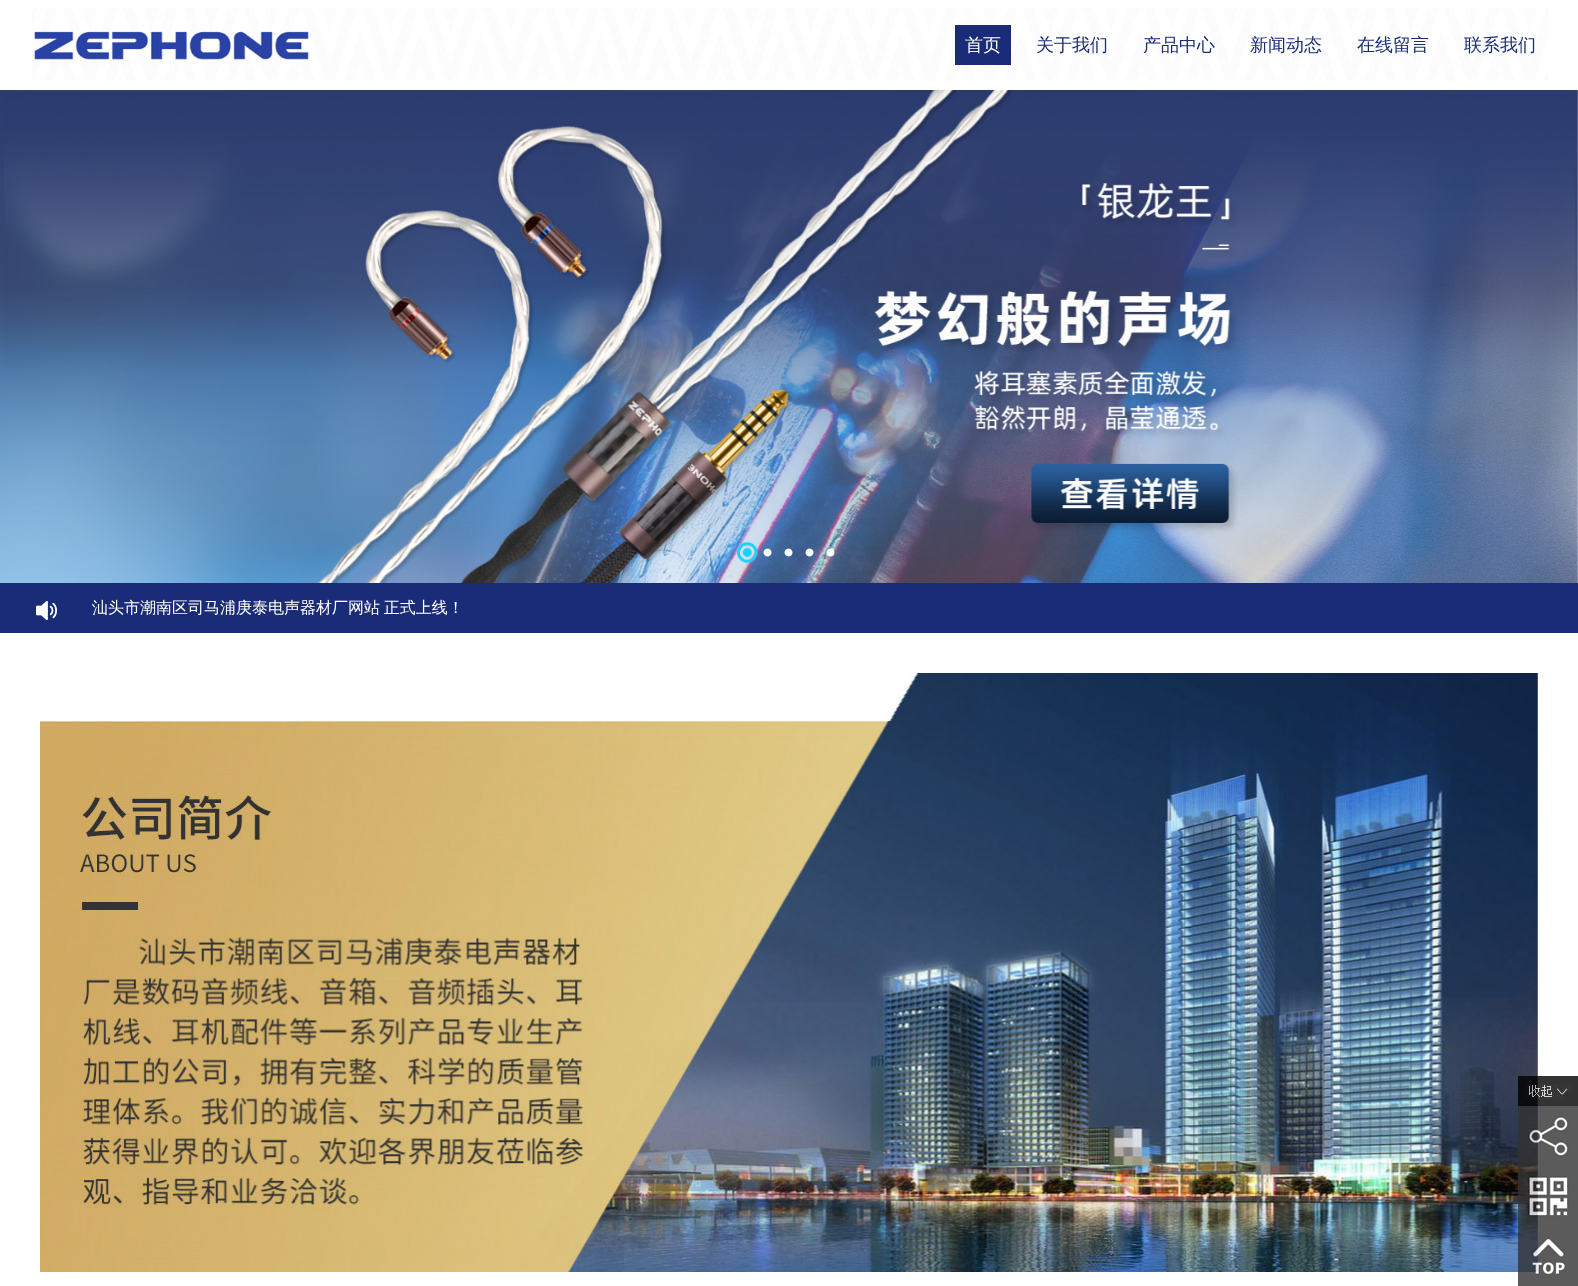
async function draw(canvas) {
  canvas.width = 1578
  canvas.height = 1286
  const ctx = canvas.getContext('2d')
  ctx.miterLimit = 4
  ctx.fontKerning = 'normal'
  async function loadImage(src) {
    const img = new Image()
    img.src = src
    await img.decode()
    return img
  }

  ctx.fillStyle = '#fff'
  ctx.fillRect(0, 0, 1578, 1286)
  ctx.drawImage(await loadImage('image0.png'), 32, 8, 1516, 73)
  ctx.drawImage(await loadImage('image1.png'), 34, 31, 275, 29)
  ctx.fillStyle = '#1a2b78'
  ctx.fillRect(955, 25, 56, 40)
  ctx.font = '500 18px WenQuanYi Zen Hei'
  ctx.fillStyle = '#fff'
  ctx.fillText('首页', 965, 51)
  ctx.fillStyle = '#1a2b78'
  ctx.fillText('关于我们', 1036, 51)
  ctx.fillText('产品中心', 1143, 51)
  ctx.fillText('新闻动态', 1250, 51)
  ctx.fillText('在线留言', 1357, 51)
  ctx.fillText('联系我们', 1464, 51)
  ctx.drawImage(await loadImage('image2.png'), 0, 90, 1578, 493)
  ctx.drawImage(await loadImage('image3.png'), 737, 542, 21, 21)
  ctx.drawImage(await loadImage('image4.png'), 763, 548, 9, 9)
  ctx.drawImage(await loadImage('image5.png'), 784, 548, 9, 9)
  ctx.drawImage(await loadImage('image6.png'), 805, 548, 9, 9)
  ctx.drawImage(await loadImage('image7.png'), 826, 548, 9, 9)
  ctx.fillRect(0, 583, 1578, 50)
  ctx.drawImage(await loadImage('image8.png'), 36, 600, 21, 21)
  ctx.wordSpacing = '-1px'
  ctx.font = '500 16px WenQuanYi Zen Hei'
  ctx.fillStyle = '#fff'
  ctx.fillText('汕头市潮南区司马浦庚泰电声器材厂网站 正式上线！', 92, 613)
  ctx.drawImage(await loadImage('image9.png'), 40, 673, 1498, 599)
  ctx.drawImage(await loadImage('image10.png'), 1518, 1076, 60, 30)
  ctx.drawImage(await loadImage('image11.png'), 1518, 1106, 60, 60)
  ctx.drawImage(await loadImage('image12.png'), 1518, 1166, 60, 60)
  ctx.drawImage(await loadImage('image13.png'), 1518, 1226, 60, 60)
}

draw(document.querySelector('canvas'))
